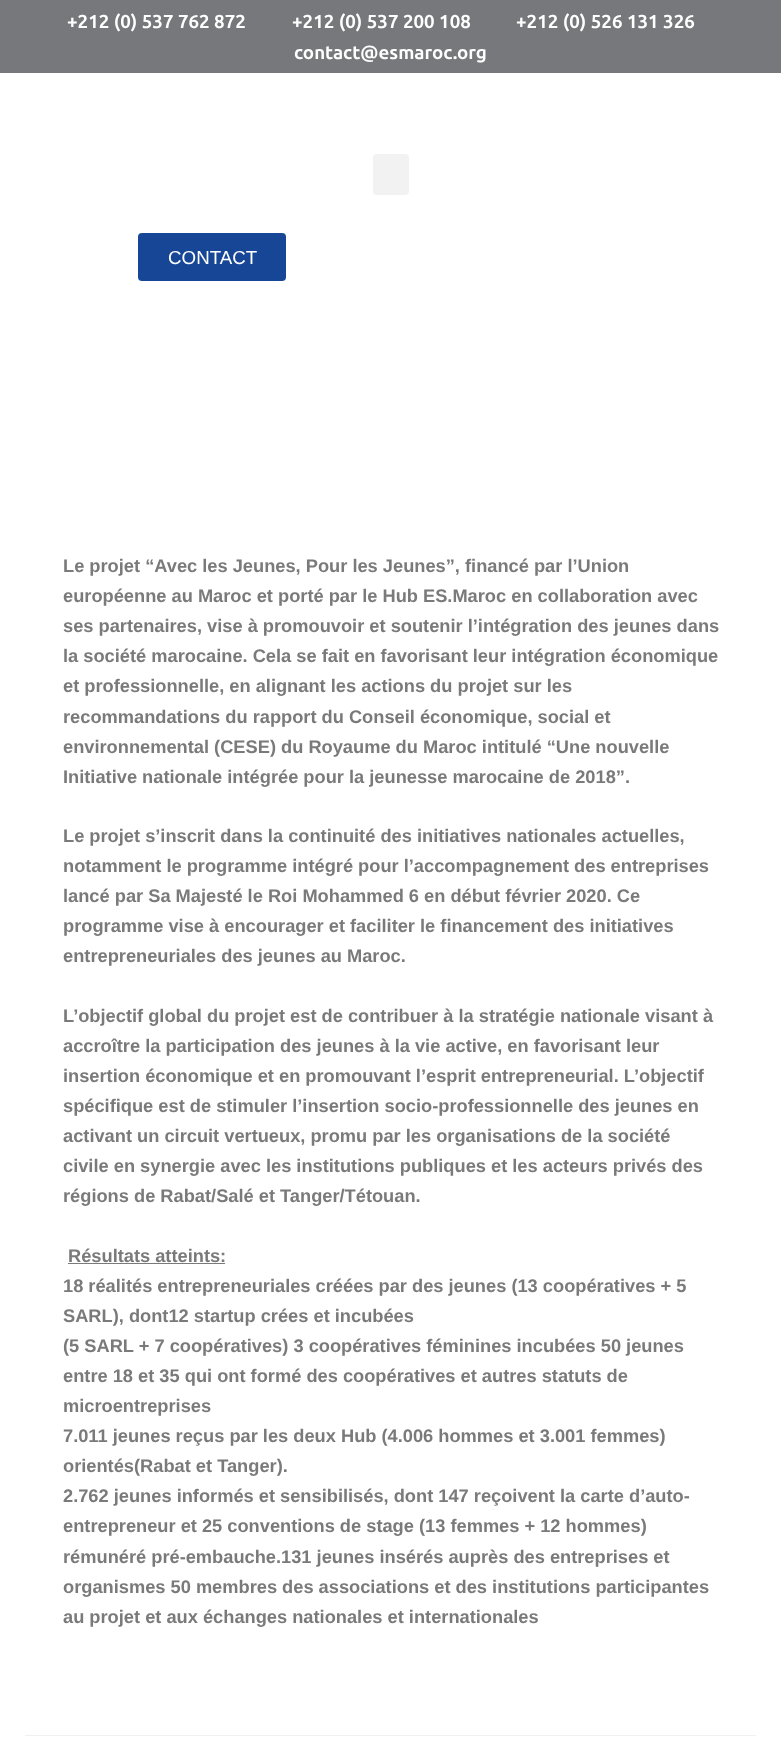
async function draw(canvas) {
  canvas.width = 781
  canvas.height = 1756
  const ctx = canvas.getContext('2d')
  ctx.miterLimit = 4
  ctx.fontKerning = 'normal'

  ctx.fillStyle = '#fff'
  ctx.fillRect(0, 0, 781, 1756)
  ctx.fillStyle = '#77787b'
  ctx.fillRect(0, 0, 781, 73)
  ctx.font = 'bold 18.75px Ubuntu'
  ctx.fillStyle = '#fff'
  ctx.fillText('+212 (0) 537 762 872', 67, 28)
  ctx.fillText('+212 (0) 537 200 108', 292, 28)
  ctx.fillText('+212 (0) 526 131 326', 516, 28)
  ctx.fillText('contact@esmaroc.org', 294, 59)
  ctx.fillStyle = '#f2f2f2'
  ctx.beginPath()
  ctx.roundRect(373, 154, 36, 41, 4)
  ctx.fill()
  ctx.fillStyle = '#174696'
  ctx.beginPath()
  ctx.roundRect(138, 233, 148, 48, 4)
  ctx.fill()
  ctx.font = '18.75px Liberation Sans'
  ctx.fillStyle = '#fff'
  ctx.fillText('CONTACT', 168, 264)
  ctx.font = 'bold 18.25px Liberation Sans'
  ctx.fillStyle = '#7a7a7a'
  ctx.fillText('Le projet “Avec les Jeunes, Pour les Jeunes”, financé par l’Union', 63, 572)
  ctx.fillText('européenne au Maroc et porté par le Hub ES.Maroc en collaboration avec', 63, 602)
  ctx.fillText('ses partenaires, vise à promouvoir et soutenir l’intégration des jeunes dans', 63, 632)
  ctx.fillText('la société marocaine. Cela se fait en favorisant leur intégration économique', 63, 662)
  ctx.fillText('et professionnelle, en alignant les actions du projet sur les', 63, 692)
  ctx.fillText('recommandations du rapport du Conseil économique, social et', 63, 723)
  ctx.fillText('environnemental (CESE) du Royaume du Maroc intitulé “Une nouvelle', 63, 753)
  ctx.fillText('Initiative nationale intégrée pour la jeunesse marocaine de 2018”.', 63, 783)
  ctx.fillText('Le projet s’inscrit dans la continuité des initiatives nationales actuelles,', 63, 842)
  ctx.fillText('notamment le programme intégré pour l’accompagnement des entreprises', 63, 872)
  ctx.fillText('lancé par Sa Majesté le Roi Mohammed 6 en début février 2020. Ce', 63, 902)
  ctx.fillText('programme vise à encourager et faciliter le financement des initiatives', 63, 932)
  ctx.fillText('entrepreneuriales des jeunes au Maroc.', 63, 962)
  ctx.fillText('L’objectif global du projet est de contribuer à la stratégie nationale visant à', 63, 1022)
  ctx.fillText('accroître la participation des jeunes à la vie active, en favorisant leur', 63, 1052)
  ctx.fillText('insertion économique et en promouvant l’esprit entrepreneurial. L’objectif', 63, 1082)
  ctx.fillText('spécifique est de stimuler l’insertion socio-professionnelle des jeunes en', 63, 1112)
  ctx.fillText('activant un circuit vertueux, promu par les organisations de la société', 63, 1142)
  ctx.fillText('civile en synergie avec les institutions publiques et les acteurs privés des', 63, 1172)
  ctx.fillText('régions de Rabat/Salé et Tanger/Tétouan.', 63, 1202)
  ctx.fillText('Résultats atteints:', 68, 1262)
  ctx.fillRect(68, 1263, 157, 1)
  ctx.fillText('18 réalités entrepreneuriales créées par des jeunes (13 coopératives + 5', 63, 1292)
  ctx.fillText('SARL), dont12 startup crées et incubées', 63, 1322)
  ctx.fillText('(5 SARL + 7 coopératives) 3 coopératives féminines incubées 50 jeunes', 63, 1352)
  ctx.fillText('entre 18 et 35 qui ont formé des coopératives et autres statuts de', 63, 1382)
  ctx.fillText('microentreprises', 63, 1412)
  ctx.fillText('7.011 jeunes reçus par les deux Hub (4.006 hommes et 3.001 femmes)', 63, 1442)
  ctx.fillText('orientés(Rabat et Tanger).', 63, 1472)
  ctx.fillText('2.762 jeunes informés et sensibilisés, dont 147 reçoivent la carte d’auto-', 63, 1502)
  ctx.fillText('entrepreneur et 25 conventions de stage (13 femmes + 12 hommes)', 63, 1532)
  ctx.fillText('rémunéré pré-embauche.131 jeunes insérés auprès des entreprises et', 63, 1563)
  ctx.fillText('organismes 50 membres des associations et des institutions participantes', 63, 1593)
  ctx.fillText('au projet et aux échanges nationales et internationales', 63, 1623)
  ctx.fillStyle = '#f1f0f0'
  ctx.fillRect(25, 1735, 731, 1)
}

draw(document.querySelector('canvas'))
